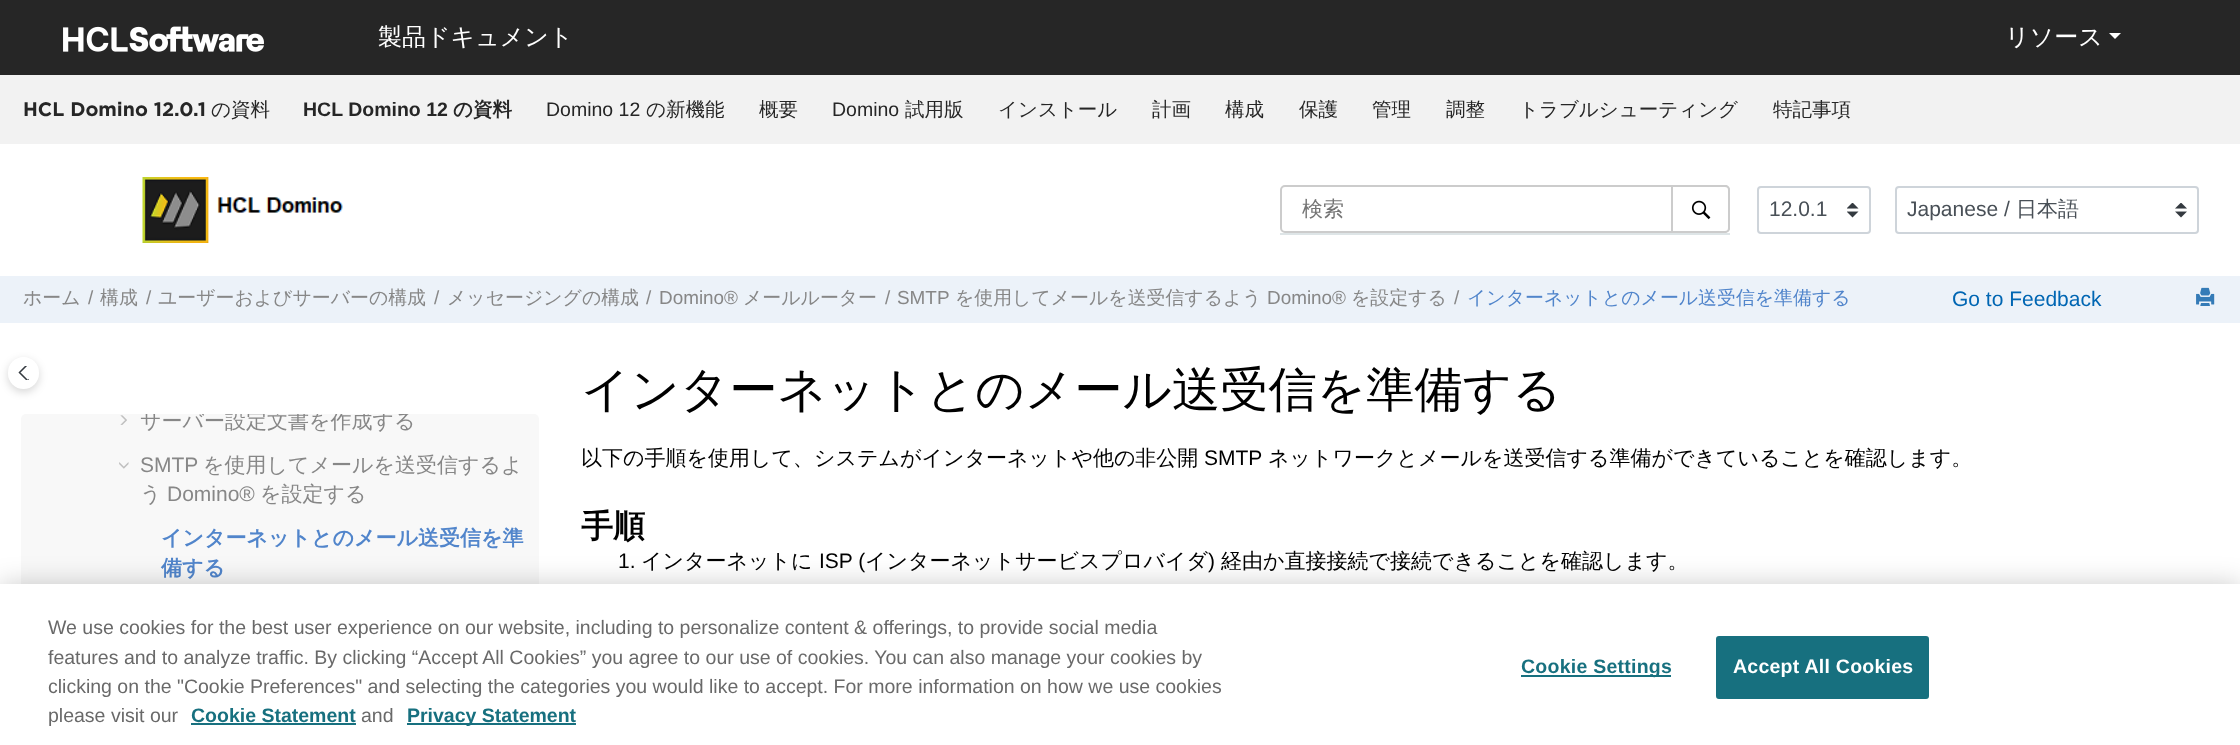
async function draw(canvas) {
  canvas.width = 2240
  canvas.height = 745
  const ctx = canvas.getContext('2d')
  ctx.miterLimit = 4
  ctx.fontKerning = 'normal'
  async function loadImage(src) {
    const img = new Image()
    img.src = src
    await img.decode()
    return img
  }

  ctx.fillStyle = '#fff'
  ctx.fillRect(0, 0, 2240, 745)
  ctx.fillStyle = '#262626'
  ctx.fillRect(0, 0, 2240, 75)
  ctx.drawImage(await loadImage('image0.png'), 63, 26, 201, 26)
  ctx.font = '500 24px WenQuanYi Zen Hei'
  ctx.fillStyle = '#fff'
  ctx.fillText('製品ドキュメント', 378, 45)
  ctx.fillText('リソース', 2005, 45)
  ctx.beginPath()
  ctx.moveTo(2109, 33)
  ctx.lineTo(2121, 33)
  ctx.lineTo(2115, 39)
  ctx.closePath()
  ctx.fill()
  ctx.fillStyle = '#f2f2f2'
  ctx.fillRect(0, 75, 2240, 69)
  ctx.font = 'bold 19.5px Gotham'
  ctx.fillStyle = '#262626'
  ctx.fillText('HCL Domino 12.0.1', 23, 116)
  ctx.font = '500 19.5px WenQuanYi Zen Hei'
  ctx.fillText('の資料', 211, 116)
  ctx.font = 'bold 19.5px Liberation Sans'
  ctx.fillText('HCL Domino 12', 303, 116)
  ctx.font = 'bold 19.5px WenQuanYi Zen Hei'
  ctx.fillText('の資料', 453, 116)
  ctx.font = '19.5px Liberation Sans'
  ctx.fillText('Domino 12', 546, 116)
  ctx.font = '500 19.5px WenQuanYi Zen Hei'
  ctx.fillText('の新機能', 646, 116)
  ctx.fillText('概要', 759, 116)
  ctx.font = '19.5px Liberation Sans'
  ctx.fillText('Domino', 832, 116)
  ctx.font = '500 19.5px WenQuanYi Zen Hei'
  ctx.fillText('試用版', 905, 116)
  ctx.fillText('インストール', 998, 116)
  ctx.fillText('計画', 1152, 116)
  ctx.fillText('構成', 1225, 116)
  ctx.fillText('保護', 1299, 116)
  ctx.fillText('管理', 1372, 116)
  ctx.fillText('調整', 1446, 116)
  ctx.fillText('トラブルシューティング', 1519, 116)
  ctx.fillText('特記事項', 1773, 116)
  ctx.drawImage(await loadImage('image1.png'), 142, 177, 201, 66)
  ctx.fillStyle = '#dee5e7'
  ctx.fillRect(1280, 233, 450, 2)
  ctx.beginPath()
  ctx.roundRect(1281, 186, 448, 46, 4)
  ctx.strokeStyle = '#ccc'
  ctx.lineWidth = 2
  ctx.stroke()
  ctx.font = '500 21px WenQuanYi Zen Hei'
  ctx.fillStyle = '#757575'
  ctx.fillText('検索', 1302, 216)
  ctx.fillStyle = '#fff'
  ctx.beginPath()
  ctx.roundRect(1672, 186, 57, 46, [0, 4, 4, 0])
  ctx.fill()
  ctx.stroke()
  ctx.drawImage(await loadImage('image2.png'), 1691, 200, 20, 20)
  ctx.drawImage(await loadImage('image3.png'), 1847, 203, 12, 15)
  ctx.beginPath()
  ctx.roundRect(1758, 187, 112, 46, 3)
  ctx.strokeStyle = '#ced4da'
  ctx.stroke()
  ctx.font = '21px Liberation Sans'
  ctx.fillStyle = '#495057'
  ctx.fillText('12.0.1', 1769, 216)
  ctx.drawImage(await loadImage('image4.png'), 2175, 203, 12, 15)
  ctx.beginPath()
  ctx.roundRect(1896, 187, 302, 46, 3)
  ctx.stroke()
  ctx.fillText('Japanese /', 1907, 216)
  ctx.font = '500 21px WenQuanYi Zen Hei'
  ctx.fillText('日本語', 2016, 216)
  ctx.fillStyle = '#ecf2f9'
  ctx.fillRect(0, 276, 2240, 47)
  ctx.font = '500 18.9px WenQuanYi Zen Hei'
  ctx.fillStyle = '#878787'
  ctx.fillText('ホーム', 23, 304)
  ctx.font = '18.9px Liberation Sans'
  ctx.fillText('/', 88, 304)
  ctx.font = '500 18.9px WenQuanYi Zen Hei'
  ctx.fillText('構成', 100, 304)
  ctx.font = '18.9px Liberation Sans'
  ctx.fillText('/', 146, 304)
  ctx.font = '500 18.9px WenQuanYi Zen Hei'
  ctx.fillText('ユーザーおよびサーバーの構成', 158, 304)
  ctx.font = '18.9px Liberation Sans'
  ctx.fillText('/', 434, 304)
  ctx.font = '500 18.9px WenQuanYi Zen Hei'
  ctx.fillText('メッセージングの構成', 447, 304)
  ctx.font = '18.9px Liberation Sans'
  ctx.fillText('/', 646, 304)
  ctx.fillText('Domino®', 659, 304)
  ctx.font = '500 18.9px WenQuanYi Zen Hei'
  ctx.fillText('メールルーター', 743, 304)
  ctx.font = '18.9px Liberation Sans'
  ctx.fillText('/', 885, 304)
  ctx.fillText('SMTP', 897, 304)
  ctx.font = '500 18.9px WenQuanYi Zen Hei'
  ctx.fillText('を使用してメールを送受信するよう', 955, 304)
  ctx.font = '18.9px Liberation Sans'
  ctx.fillText('Domino®', 1267, 304)
  ctx.font = '500 18.9px WenQuanYi Zen Hei'
  ctx.fillText('を設定する', 1351, 304)
  ctx.font = '18.9px Liberation Sans'
  ctx.fillText('/', 1454, 304)
  ctx.font = '500 18.9px WenQuanYi Zen Hei'
  ctx.fillStyle = '#5185cb'
  ctx.fillText('インターネットとのメール送受信を準備する', 1467, 304)
  ctx.font = '21px Liberation Sans'
  ctx.fillStyle = '#0066b3'
  ctx.fillText('Go to Feedback', 1952, 306)
  ctx.drawImage(await loadImage('image5.png'), 2196, 287, 19, 19)
  ctx.fillStyle = '#f8f8f8'
  ctx.beginPath()
  ctx.roundRect(21, 414, 518, 221, 5)
  ctx.fill()
  ctx.drawImage(await loadImage('image6.png'), 120, 415, 7, 10)
  ctx.save()
  ctx.beginPath()
  ctx.roundRect(21, 414, 518, 221, 5)
  ctx.clip()
  ctx.font = '500 21px WenQuanYi Zen Hei'
  ctx.fillStyle = '#878787'
  ctx.fillText('サーバー設定文書を作成する', 140, 428)
  ctx.restore()
  ctx.drawImage(await loadImage('image7.png'), 119, 462, 10, 7)
  ctx.fillStyle = '#878787'
  ctx.fillText('SMTP', 140, 472)
  ctx.font = '500 21px WenQuanYi Zen Hei'
  ctx.fillText('を使用してメールを送受信するよ', 203, 472)
  ctx.fillText('う', 140, 501)
  ctx.font = '21px Liberation Sans'
  ctx.fillText('Domino®', 167, 501)
  ctx.font = '500 21px WenQuanYi Zen Hei'
  ctx.fillText('を設定する', 260, 501)
  ctx.font = 'bold 21px WenQuanYi Zen Hei'
  ctx.fillStyle = '#5185cb'
  ctx.fillText('インターネットとのメール送受信を準', 161, 545)
  ctx.fillText('備する', 161, 575)
  ctx.fillStyle = '#00000029'
  ctx.filter = 'blur(4px)'
  ctx.beginPath()
  ctx.roundRect(8, 360, 31, 32, 15.5)
  ctx.fill()
  ctx.filter = 'none'
  ctx.fillStyle = '#fff'
  ctx.beginPath()
  ctx.roundRect(8, 357, 31, 32, 15.5)
  ctx.fill()
  ctx.save()
  ctx.beginPath()
  ctx.rect(18, 366, 11, 14)
  ctx.clip()
  ctx.beginPath()
  ctx.moveTo(28, 364)
  ctx.lineTo(36, 372.5)
  ctx.lineTo(28, 381)
  ctx.lineTo(19.5, 372.5)
  ctx.closePath()
  ctx.strokeStyle = '#343a40'
  ctx.lineWidth = 1.5
  ctx.stroke()
  ctx.restore()
  ctx.font = '500 48.3px WenQuanYi Zen Hei'
  ctx.fillStyle = '#000'
  ctx.fillText('インターネットとのメール送受信を準備する', 581, 406)
  ctx.font = '500 21px WenQuanYi Zen Hei'
  ctx.fillText('以下の手順を使用して、システムがインターネットや他の非公開', 581, 465)
  ctx.font = '21px Liberation Sans'
  ctx.fillText('SMTP', 1204, 465)
  ctx.font = '500 21px WenQuanYi Zen Hei'
  ctx.fillText('ネットワークとメールを送受信する準備ができていることを確認します。', 1268, 465)
  ctx.font = 'bold 32px WenQuanYi Zen Hei'
  ctx.fillText('手順', 581, 537)
  ctx.font = '21px Liberation Sans'
  ctx.fillText('1.', 618, 568)
  ctx.font = '500 21px WenQuanYi Zen Hei'
  ctx.fillText('インターネットに', 641, 568)
  ctx.font = '21px Liberation Sans'
  ctx.fillText('ISP (', 819, 568)
  ctx.font = '500 21px WenQuanYi Zen Hei'
  ctx.fillText('インターネットサービスプロバイダ', 865, 568)
  ctx.font = '21px Liberation Sans'
  ctx.fillText(')', 1208, 568)
  ctx.font = '500 21px WenQuanYi Zen Hei'
  ctx.fillText('経由か直接接続で接続できることを確認します。', 1221, 568)
  ctx.fillStyle = '#00000033'
  ctx.filter = 'blur(13.5px)'
  ctx.beginPath()
  ctx.rect(0, 584, 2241, 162)
  ctx.fill()
  ctx.filter = 'none'
  ctx.fillStyle = '#fff'
  ctx.fillRect(0, 584, 2240, 161)
  ctx.font = '19.5px Liberation Sans'
  ctx.fillStyle = '#696969'
  ctx.fillText('We use cookies for the best user experience on our website, including to personalize content & offerings, to provide social media', 48, 634)
  ctx.fillText('features and to analyze traffic. By clicking “Accept All Cookies” you agree to our use of cookies. You can also manage your cookies by', 48, 664)
  ctx.fillText('clicking on the "Cookie Preferences" and selecting the categories you would like to accept. For more information on how we use cookies', 48, 693)
  ctx.fillText('please visit our', 48, 722)
  ctx.font = 'bold 19.5px Liberation Sans'
  ctx.fillStyle = '#17707f'
  ctx.fillText('Cookie Statement', 191, 722)
  ctx.fillRect(191, 723, 165, 2)
  ctx.font = '19.5px Liberation Sans'
  ctx.fillStyle = '#696969'
  ctx.fillText('and', 361, 722)
  ctx.fillStyle = '#17707f'
  ctx.fillRect(407, 723, 169, 2)
  ctx.font = 'bold 19.5px Liberation Sans'
  ctx.fillText('Privacy Statement', 407, 722)
  ctx.fillRect(1521, 675, 150, 2)
  ctx.letterSpacing = '0.25px'
  ctx.fillText('Cookie Settings', 1521, 673)
  ctx.beginPath()
  ctx.roundRect(1717, 637, 211, 61, 2)
  ctx.fill()
  ctx.strokeStyle = '#17707f'
  ctx.stroke()
  ctx.fillStyle = '#fff'
  ctx.fillText('Accept All Cookies', 1733, 673)
}

draw(document.querySelector('canvas'))
